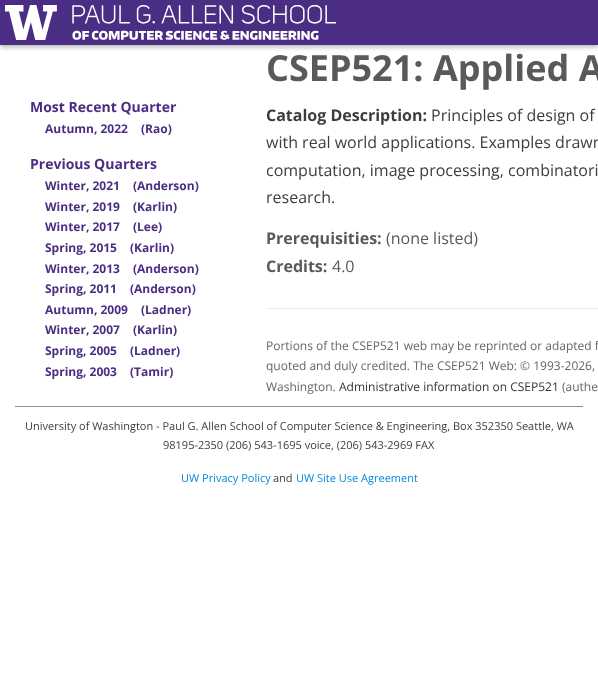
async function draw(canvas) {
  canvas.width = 598
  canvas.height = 675
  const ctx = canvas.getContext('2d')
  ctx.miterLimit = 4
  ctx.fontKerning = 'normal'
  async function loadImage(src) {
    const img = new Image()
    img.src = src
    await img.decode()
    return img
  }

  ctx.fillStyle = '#fff'
  ctx.fillRect(0, 0, 598, 675)
  ctx.fillStyle = '#0000004d'
  ctx.filter = 'blur(2.5px)'
  ctx.beginPath()
  ctx.rect(0, 2, 598, 45)
  ctx.fill()
  ctx.filter = 'none'
  ctx.fillStyle = '#4b2e83'
  ctx.fillRect(0, 0, 598, 45)
  ctx.drawImage(await loadImage('image0.png'), 5, 5, 331, 35)
  ctx.font = 'bold 14px Open Sans'
  ctx.fillText('Most Recent Quarter', 30, 112)
  ctx.font = 'bold 12px Open Sans'
  ctx.fillText('Autumn, 2022', 45, 133)
  ctx.fillText('(Rao)', 141, 133)
  ctx.font = 'bold 14px Open Sans'
  ctx.fillText('Previous Quarters', 30, 169)
  ctx.font = 'bold 12px Open Sans'
  ctx.fillText('Winter, 2021', 45, 190)
  ctx.fillText('(Anderson)', 133, 190)
  ctx.fillText('Winter, 2019', 45, 211)
  ctx.fillText('(Karlin)', 133, 211)
  ctx.fillText('Winter, 2017', 45, 231)
  ctx.fillText('(Lee)', 133, 231)
  ctx.fillText('Spring, 2015', 45, 252)
  ctx.fillText('(Karlin)', 130, 252)
  ctx.fillText('Winter, 2013', 45, 273)
  ctx.fillText('(Anderson)', 133, 273)
  ctx.fillText('Spring, 2011', 45, 293)
  ctx.fillText('(Anderson)', 130, 293)
  ctx.fillText('Autumn, 2009', 45, 314)
  ctx.fillText('(Ladner)', 141, 314)
  ctx.fillText('Winter, 2007', 45, 334)
  ctx.fillText('(Karlin)', 133, 334)
  ctx.fillText('Spring, 2005', 45, 355)
  ctx.fillText('(Ladner)', 130, 355)
  ctx.fillText('Spring, 2003', 45, 376)
  ctx.fillText('(Tamir)', 130, 376)
  ctx.font = 'bold 36px Open Sans'
  ctx.fillStyle = '#595959'
  ctx.fillText('CSEP521: Applied A', 266, 81)
  ctx.font = 'bold 16px Open Sans'
  ctx.fillStyle = '#3d3d3d'
  ctx.fillText('Catalog Description:', 266, 121)
  ctx.font = '16px Open Sans'
  ctx.fillText('Principles of design of', 431, 121)
  ctx.fillText('with real world applications. Examples drawn', 266, 148)
  ctx.fillText('computation, image processing, combinatori', 266, 176)
  ctx.fillText('research.', 266, 203)
  ctx.font = 'bold 16px Open Sans'
  ctx.fillStyle = '#595959'
  ctx.fillText('Prerequisities:', 266, 244)
  ctx.font = '16px Open Sans'
  ctx.fillText('(none listed)', 386, 244)
  ctx.font = 'bold 16px Open Sans'
  ctx.fillText('Credits:', 266, 272)
  ctx.font = '16px Open Sans'
  ctx.fillText('4.0', 332, 272)
  ctx.fillStyle = '#ebebeb'
  ctx.fillRect(266, 308, 332, 1)
  ctx.font = '12px Open Sans'
  ctx.fillStyle = '#666'
  ctx.fillText('Portions of the CSEP521 web may be reprinted or adapted f', 266, 350)
  ctx.fillText('quoted and duly credited. The CSEP521 Web: © 1993-2026,', 266, 370)
  ctx.fillText('Washington.', 266, 391)
  ctx.fillStyle = '#333'
  ctx.fillText('Administrative information on CSEP521', 339, 391)
  ctx.fillStyle = '#666'
  ctx.fillText('(authe', 562, 391)
  ctx.fillStyle = '#8b8f9e'
  ctx.fillRect(15, 406, 568, 1)
  ctx.font = '11px Open Sans'
  ctx.fillStyle = '#3d3d3d'
  ctx.fillText('University of Washington - Paul G. Allen School of Computer Science & Engineering, Box 352350 Seattle, WA', 25, 430)
  ctx.fillText('98195-2350 (206) 543-1695 voice, (206) 543-2969 FAX', 163, 449)
  ctx.fillStyle = '#08d'
  ctx.fillText('UW Privacy Policy', 181, 482)
  ctx.fillStyle = '#3d3d3d'
  ctx.fillText('and', 273, 482)
  ctx.fillStyle = '#08d'
  ctx.fillText('UW Site Use Agreement', 296, 482)
}

draw(document.querySelector('canvas'))
